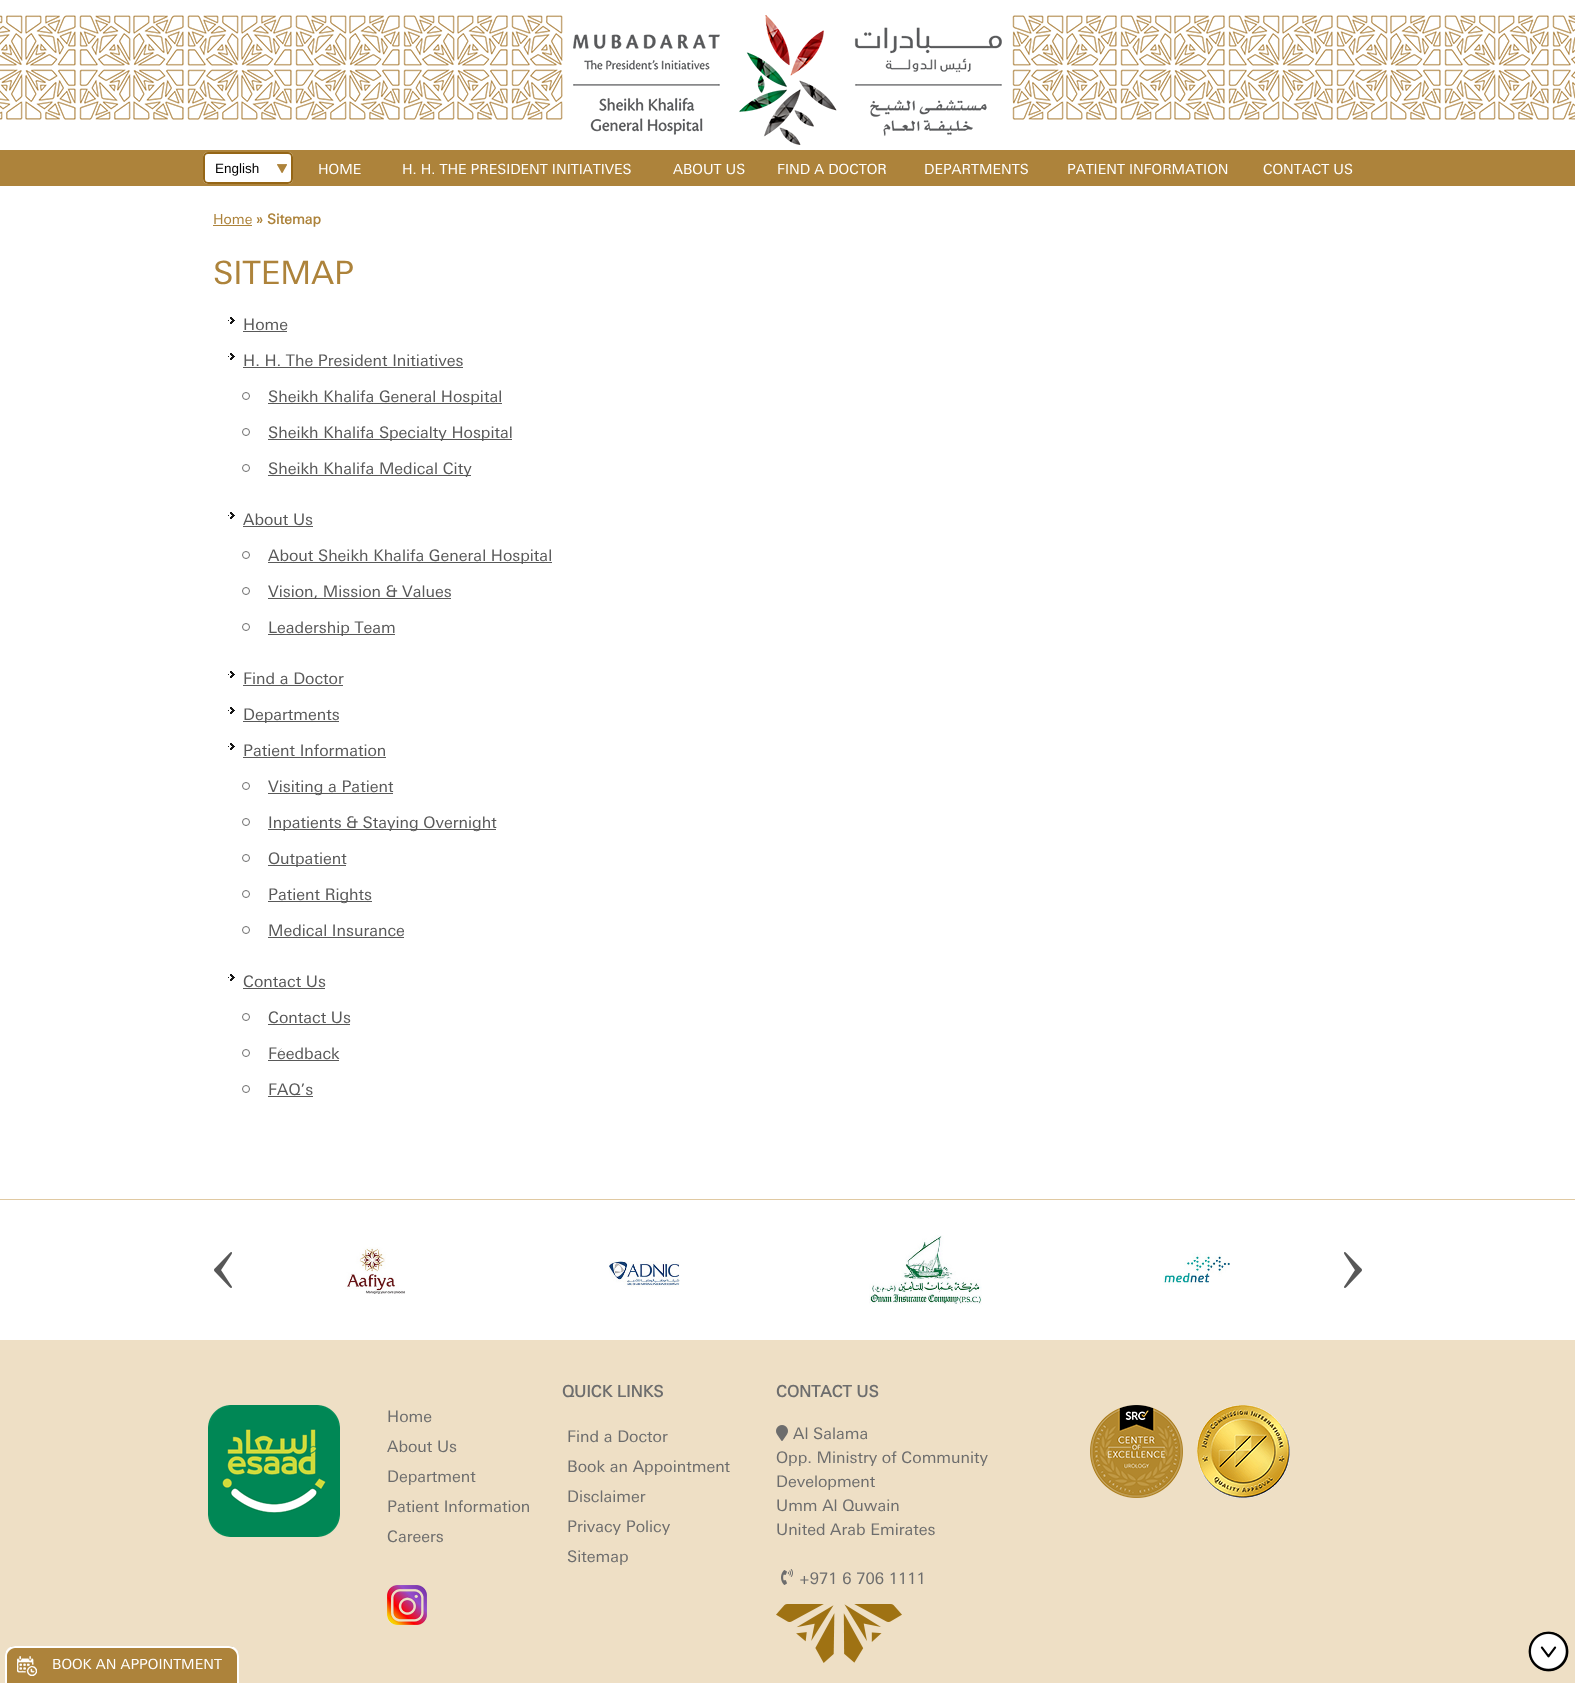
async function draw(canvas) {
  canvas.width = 1575
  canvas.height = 1683
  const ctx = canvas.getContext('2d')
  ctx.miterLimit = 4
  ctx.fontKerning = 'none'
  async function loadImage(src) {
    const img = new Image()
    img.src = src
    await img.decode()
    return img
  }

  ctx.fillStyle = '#fff'
  ctx.fillRect(0, 0, 1575, 1683)
  ctx.drawImage(await loadImage('image0.png'), 0, 15, 563, 105)
  ctx.drawImage(await loadImage('image1.png'), 573, 15, 429, 130)
  ctx.drawImage(await loadImage('image2.png'), 1012, 15, 563, 105)
  ctx.fillStyle = '#ad833b'
  ctx.fillRect(0, 150, 1575, 36)
  ctx.fillStyle = '#fff'
  ctx.beginPath()
  ctx.roundRect(203, 152, 90, 32, 5)
  ctx.fill()
  ctx.drawImage(await loadImage('image3.png'), 277, 164, 10, 9)
  ctx.beginPath()
  ctx.roundRect(204, 153, 88, 30, 4)
  ctx.strokeStyle = '#956616'
  ctx.lineWidth = 2
  ctx.stroke()
  ctx.font = '13.5px Liberation Sans'
  ctx.fillStyle = '#000'
  ctx.fillText('English', 215, 173)
  ctx.font = '14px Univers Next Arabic'
  ctx.fillStyle = '#fff'
  ctx.fillText('HOME', 318, 174)
  ctx.fillText('H. H. THE PRESIDENT INITIATIVES', 402, 174)
  ctx.fillText('ABOUT US', 673, 174)
  ctx.fillText('FIND A DOCTOR', 777, 174)
  ctx.fillText('DEPARTMENTS', 924, 174)
  ctx.fillText('PATIENT INFORMATION', 1067, 174)
  ctx.fillText('CONTACT US', 1263, 174)
  ctx.fillStyle = '#ad833b'
  ctx.fillText('Home', 213, 224)
  ctx.fillRect(213, 225, 39, 1)
  ctx.font = 'bold 14px Univers Next Arabic'
  ctx.fillText('» Sitemap', 256, 224)
  ctx.font = '32px Univers Next Arabic'
  ctx.fillText('SITEMAP', 213, 284)
  ctx.drawImage(await loadImage('image4.png'), 228, 317, 7, 7)
  ctx.font = '16px Univers Next Arabic'
  ctx.fillStyle = '#595959'
  ctx.fillText('Home', 243, 330)
  ctx.fillRect(243, 331, 44, 1)
  ctx.drawImage(await loadImage('image4.png'), 228, 353, 7, 7)
  ctx.fillText('H. H. The President Initiatives', 243, 366)
  ctx.fillRect(243, 367, 220, 1)
  ctx.beginPath()
  ctx.arc(246, 396, 3.5, 0, 2 * Math.PI)
  ctx.strokeStyle = '#6d6d6d'
  ctx.lineWidth = 1
  ctx.stroke()
  ctx.fillRect(268, 403, 234, 1)
  ctx.fillText('Sheikh Khalifa General Hospital', 268, 402)
  ctx.beginPath()
  ctx.arc(246, 432, 3.5, 0, 2 * Math.PI)
  ctx.stroke()
  ctx.fillRect(268, 439, 244, 1)
  ctx.fillText('Sheikh Khalifa Specialty Hospital', 268, 438)
  ctx.beginPath()
  ctx.arc(246, 468, 3.5, 0, 2 * Math.PI)
  ctx.stroke()
  ctx.fillRect(268, 475, 203, 1)
  ctx.fillText('Sheikh Khalifa Medical City', 268, 474)
  ctx.drawImage(await loadImage('image4.png'), 228, 512, 7, 7)
  ctx.fillText('About Us', 243, 525)
  ctx.fillRect(243, 526, 70, 1)
  ctx.beginPath()
  ctx.arc(246, 555, 3.5, 0, 2 * Math.PI)
  ctx.stroke()
  ctx.fillRect(268, 562, 284, 1)
  ctx.fillText('About Sheikh Khalifa General Hospital', 268, 561)
  ctx.beginPath()
  ctx.arc(246, 591, 3.5, 0, 2 * Math.PI)
  ctx.stroke()
  ctx.fillRect(268, 598, 183, 1)
  ctx.fillText('Vision, Mission & Values', 268, 597)
  ctx.beginPath()
  ctx.arc(246, 627, 3.5, 0, 2 * Math.PI)
  ctx.stroke()
  ctx.fillRect(268, 634, 127, 1)
  ctx.fillText('Leadership Team', 268, 633)
  ctx.drawImage(await loadImage('image4.png'), 228, 671, 7, 7)
  ctx.fillText('Find a Doctor', 243, 684)
  ctx.fillRect(243, 685, 100, 1)
  ctx.drawImage(await loadImage('image4.png'), 228, 707, 7, 7)
  ctx.fillRect(243, 721, 96, 1)
  ctx.fillText('Departments', 243, 720)
  ctx.drawImage(await loadImage('image4.png'), 228, 743, 7, 7)
  ctx.fillText('Patient Information', 243, 756)
  ctx.fillRect(243, 757, 143, 1)
  ctx.beginPath()
  ctx.arc(246, 786, 3.5, 0, 2 * Math.PI)
  ctx.stroke()
  ctx.fillRect(268, 793, 125, 1)
  ctx.fillText('Visiting a Patient', 268, 792)
  ctx.beginPath()
  ctx.arc(246, 822, 3.5, 0, 2 * Math.PI)
  ctx.stroke()
  ctx.fillRect(268, 829, 228, 1)
  ctx.fillText('Inpatients & Staying Overnight', 268, 828)
  ctx.beginPath()
  ctx.arc(246, 858, 3.5, 0, 2 * Math.PI)
  ctx.stroke()
  ctx.fillRect(268, 865, 78, 1)
  ctx.fillText('Outpatient', 268, 864)
  ctx.beginPath()
  ctx.arc(246, 894, 3.5, 0, 2 * Math.PI)
  ctx.stroke()
  ctx.fillRect(268, 901, 104, 1)
  ctx.fillText('Patient Rights', 268, 900)
  ctx.beginPath()
  ctx.arc(246, 930, 3.5, 0, 2 * Math.PI)
  ctx.stroke()
  ctx.fillText('Medical Insurance', 268, 936)
  ctx.fillRect(268, 937, 136, 1)
  ctx.drawImage(await loadImage('image4.png'), 228, 974, 7, 7)
  ctx.fillText('Contact Us', 243, 987)
  ctx.fillRect(243, 988, 82, 1)
  ctx.beginPath()
  ctx.arc(246, 1017, 3.5, 0, 2 * Math.PI)
  ctx.stroke()
  ctx.fillText('Contact Us', 268, 1023)
  ctx.fillRect(268, 1024, 82, 1)
  ctx.drawImage(await loadImage('image5.png'), 278, 1048, 11, 9)
  ctx.fillText('Feedback', 268, 1059)
  ctx.fillRect(268, 1060, 71, 1)
  ctx.beginPath()
  ctx.arc(246, 1053, 3.5, 0, 2 * Math.PI)
  ctx.stroke()
  ctx.beginPath()
  ctx.arc(246, 1089, 3.5, 0, 2 * Math.PI)
  ctx.stroke()
  ctx.fillText('FAQ’s', 268, 1095)
  ctx.fillRect(268, 1096, 45, 1)
  ctx.fillStyle = '#e0c9a2'
  ctx.fillRect(0, 1199, 1575, 1)
  ctx.drawImage(await loadImage('image6.png'), 214, 1252, 18, 36)
  ctx.drawImage(await loadImage('image7.png'), 345, 1247, 60, 47)
  ctx.drawImage(await loadImage('image8.png'), 609, 1261, 71, 26)
  ctx.drawImage(await loadImage('image9.png'), 869, 1235, 113, 70)
  ctx.drawImage(await loadImage('image10.png'), 1163, 1253, 67, 32)
  ctx.drawImage(await loadImage('image11.png'), 1344, 1252, 18, 36)
  ctx.fillStyle = '#eedfc5'
  ctx.fillRect(0, 1340, 1575, 343)
  ctx.drawImage(await loadImage('image12.png'), 208, 1405, 132, 132)
  ctx.fillStyle = '#6d6d6d'
  ctx.fillText('Home', 387, 1422)
  ctx.fillText('About Us', 387, 1452)
  ctx.fillText('Department', 387, 1482)
  ctx.fillText('Patient Information', 387, 1512)
  ctx.fillText('Careers', 387, 1542)
  ctx.drawImage(await loadImage('image13.png'), 387, 1585, 40, 40)
  ctx.font = 'bold 16px Univers Next Arabic'
  ctx.fillText('QUICK LINKS', 562, 1397)
  ctx.font = '16px Univers Next Arabic'
  ctx.fillText('Find a Doctor', 567, 1442)
  ctx.fillText('Book an Appointment', 567, 1472)
  ctx.fillText('Disclaimer', 567, 1502)
  ctx.fillText('Privacy Policy', 567, 1532)
  ctx.fillText('Sitemap', 567, 1562)
  ctx.font = 'bold 16px Univers Next Arabic'
  ctx.fillText('CONTACT US', 776, 1397)
  ctx.drawImage(await loadImage('image14.png'), 776, 1425, 12, 16)
  ctx.font = '16px Univers Next Arabic'
  ctx.fillText('Al Salama', 793, 1439)
  ctx.fillText('Opp. Ministry of Community', 776, 1463)
  ctx.fillText('Development', 776, 1487)
  ctx.fillText('Umm Al Quwain', 776, 1511)
  ctx.fillText('United Arab Emirates', 776, 1535)
  ctx.drawImage(await loadImage('image15.png'), 781, 1569, 12, 16)
  ctx.fillText('+971 6 706 1111', 799, 1584)
  ctx.drawImage(await loadImage('image16.png'), 776, 1604, 126, 59)
  ctx.drawImage(await loadImage('image17.png'), 1090, 1405, 93, 93)
  ctx.drawImage(await loadImage('image18.png'), 1197, 1405, 93, 93)
  ctx.fillStyle = '#ad833b'
  ctx.beginPath()
  ctx.roundRect(5, 1646, 234, 37, [10, 10, 0, 0])
  ctx.fill()
  ctx.drawImage(await loadImage('image19.png'), 17, 1656, 20, 20)
  ctx.fillStyle = '#fff'
  ctx.beginPath()
  ctx.moveTo(15, 1646)
  ctx.lineTo(229, 1646)
  ctx.bezierCurveTo(235, 1646, 239, 1650, 239, 1656)
  ctx.lineTo(239, 1683)
  ctx.lineTo(5, 1683)
  ctx.lineTo(5, 1656)
  ctx.bezierCurveTo(5, 1650, 9, 1646, 15, 1646)
  ctx.closePath()
  ctx.moveTo(15, 1648)
  ctx.lineTo(229, 1648)
  ctx.bezierCurveTo(233, 1648, 237, 1652, 237, 1656)
  ctx.lineTo(237, 1683)
  ctx.lineTo(7, 1683)
  ctx.lineTo(7, 1656)
  ctx.bezierCurveTo(7, 1652, 11, 1648, 15, 1648)
  ctx.closePath()
  ctx.fill('evenodd')
  ctx.font = '14px Univers Next Arabic'
  ctx.fillText('BOOK AN APPOINTMENT', 52, 1669)
  ctx.drawImage(await loadImage('image20.png'), 1528, 1631, 41, 41)
  ctx.drawImage(await loadImage('image21.png'), 1528, 1631, 41, 41)
}

draw(document.querySelector('canvas'))
